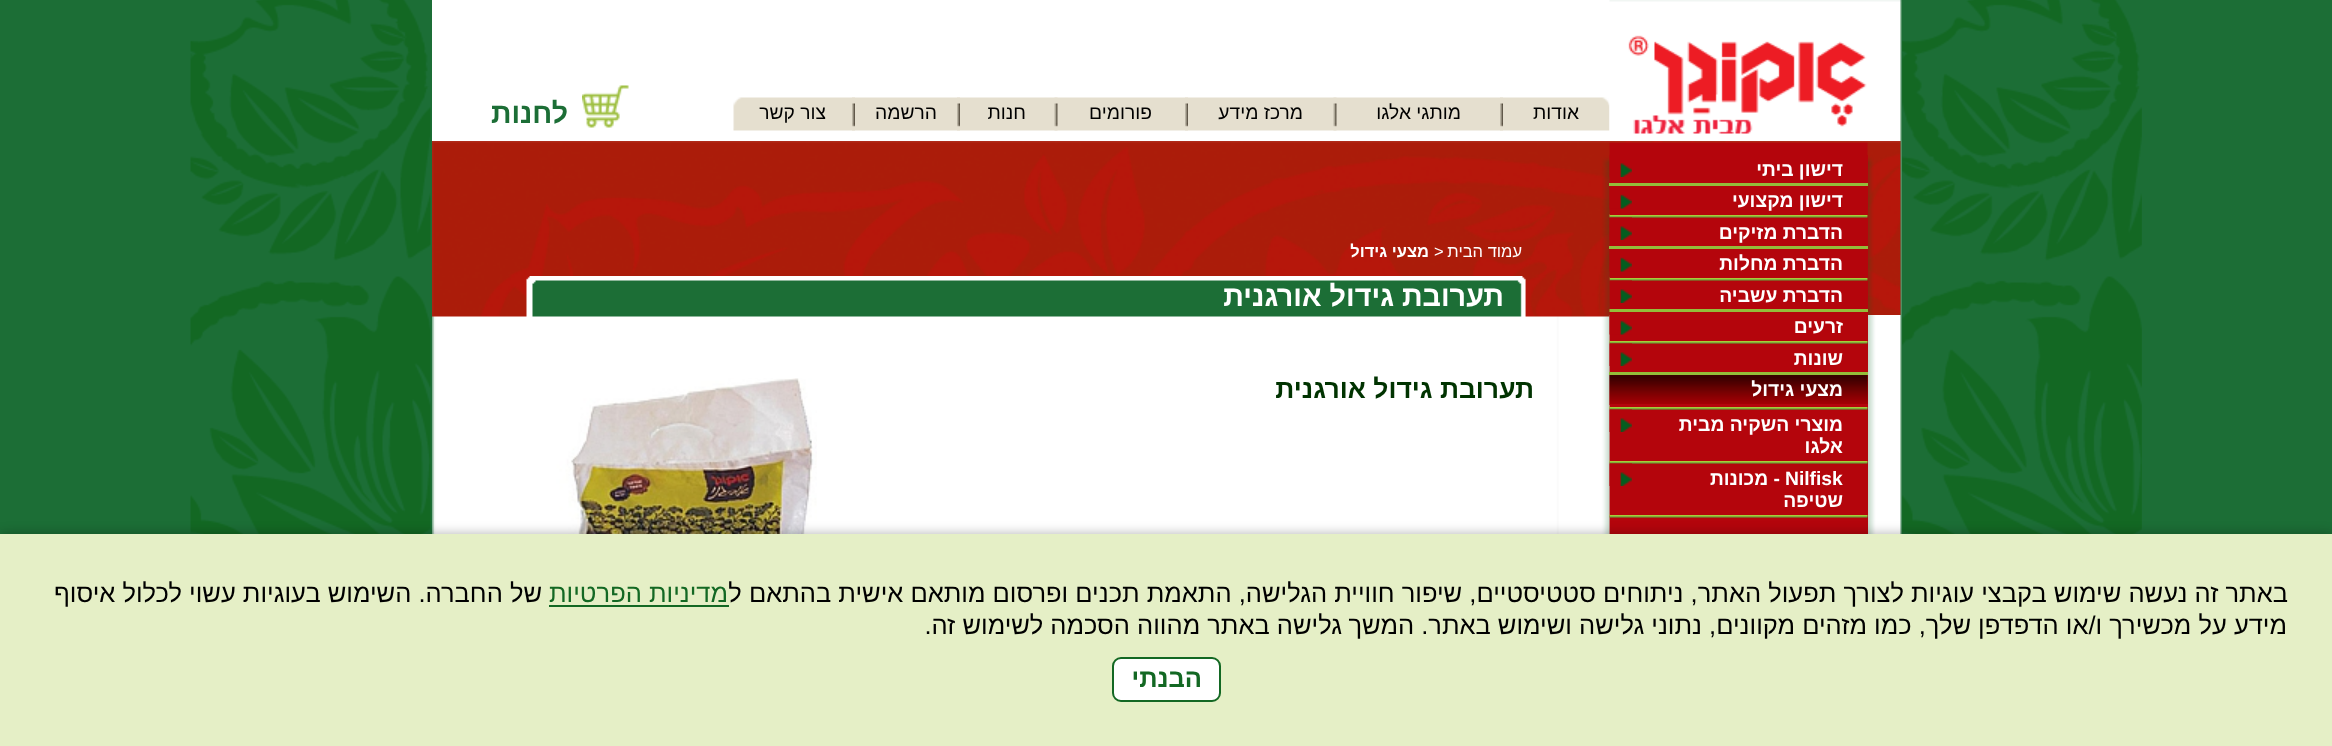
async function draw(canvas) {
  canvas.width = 2332
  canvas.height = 746
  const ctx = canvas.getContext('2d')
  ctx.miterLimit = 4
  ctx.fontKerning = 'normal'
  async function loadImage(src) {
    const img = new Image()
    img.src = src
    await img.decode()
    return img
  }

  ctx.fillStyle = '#1c6e36'
  ctx.fillRect(0, 0, 2332, 746)
  ctx.drawImage(await loadImage('image0.png'), 190, 0, 1952, 534)
  ctx.fillStyle = '#fff'
  ctx.fillRect(432, 0, 1178, 141)
  ctx.drawImage(await loadImage('image2.png'), 733, 97, 877, 34)
  ctx.drawImage(await loadImage('image1.png'), 1609, 0, 293, 141)
  ctx.direction = 'rtl'
  ctx.font = '19.25px Liberation Sans'
  ctx.fillStyle = '#000'
  ctx.fillText('אודות', 1579, 119)
  ctx.drawImage(await loadImage('image3.png'), 1500, 97, 3, 34)
  ctx.fillText('מותגי אלגו', 1461, 119)
  ctx.drawImage(await loadImage('image4.png'), 1333, 97, 4, 34)
  ctx.fillText('מרכז מידע', 1303, 119)
  ctx.drawImage(await loadImage('image3.png'), 1185, 97, 3, 34)
  ctx.fillText('פורומים', 1152, 119)
  ctx.drawImage(await loadImage('image4.png'), 1054, 97, 4, 34)
  ctx.fillText('חנות', 1026, 119)
  ctx.drawImage(await loadImage('image5.png'), 957, 97, 3, 34)
  ctx.fillText('הרשמה', 937, 119)
  ctx.drawImage(await loadImage('image5.png'), 852, 97, 3, 34)
  ctx.fillText('צור קשר', 826, 119)
  ctx.drawImage(await loadImage('image6.png'), 582, 85, 47, 43)
  ctx.font = 'bold 28.5px Liberation Sans'
  ctx.fillStyle = '#1c6e36'
  ctx.fillText('לחנות', 568, 123)
  ctx.drawImage(await loadImage('image7.png'), 432, 141, 1470, 393)
  ctx.drawImage(await loadImage('image8.png'), 432, 141, 1469, 174)
  ctx.fillStyle = '#9d070d'
  ctx.fillRect(1610, 215, 258, 303)
  ctx.fillStyle = '#93bd3a'
  ctx.fillRect(1609, 183, 259, 3)
  ctx.fillStyle = '#b4050c'
  ctx.fillRect(1867, 155, 1, 28)
  ctx.drawImage(await loadImage('image9.png'), 1609, 155, 23, 22)
  ctx.font = 'bold 19.25px Liberation Sans'
  ctx.fillStyle = '#fff'
  ctx.fillText('דישון ביתי', 1843, 176)
  ctx.drawImage(await loadImage('image10.png'), 1609, 214, 259, 4)
  ctx.fillStyle = '#b4050c'
  ctx.fillRect(1610, 186, 258, 29)
  ctx.drawImage(await loadImage('image11.png'), 1609, 186, 23, 23)
  ctx.fillStyle = '#fff'
  ctx.fillText('דישון מקצועי', 1843, 207)
  ctx.fillStyle = '#93bd3a'
  ctx.fillRect(1609, 246, 259, 3)
  ctx.fillStyle = '#b4050c'
  ctx.fillRect(1610, 218, 258, 28)
  ctx.drawImage(await loadImage('image12.png'), 1609, 217, 23, 23)
  ctx.fillStyle = '#fff'
  ctx.fillText('הדברת מזיקים', 1843, 239)
  ctx.drawImage(await loadImage('image13.png'), 1609, 277, 259, 4)
  ctx.fillStyle = '#b4050c'
  ctx.fillRect(1610, 249, 258, 29)
  ctx.drawImage(await loadImage('image14.png'), 1609, 249, 23, 23)
  ctx.fillStyle = '#fff'
  ctx.fillText('הדברת מחלות', 1843, 270)
  ctx.fillStyle = '#93bd3a'
  ctx.fillRect(1609, 309, 259, 3)
  ctx.fillStyle = '#b4050c'
  ctx.fillRect(1610, 281, 258, 28)
  ctx.drawImage(await loadImage('image15.png'), 1609, 280, 23, 23)
  ctx.fillStyle = '#fff'
  ctx.fillText('הדברת עשביה', 1843, 302)
  ctx.drawImage(await loadImage('image16.png'), 1609, 340, 259, 4)
  ctx.fillStyle = '#b4050c'
  ctx.fillRect(1610, 312, 258, 29)
  ctx.drawImage(await loadImage('image17.png'), 1609, 312, 23, 23)
  ctx.fillStyle = '#fff'
  ctx.fillText('זרעים', 1843, 333)
  ctx.fillStyle = '#93bd3a'
  ctx.fillRect(1609, 372, 259, 3)
  ctx.fillStyle = '#b4050c'
  ctx.fillRect(1610, 344, 258, 28)
  ctx.drawImage(await loadImage('image18.png'), 1609, 343, 23, 23)
  ctx.fillStyle = '#fff'
  ctx.fillText('שונות', 1843, 365)
  ctx.drawImage(await loadImage('image16.png'), 1609, 406, 259, 4)
  ctx.fillStyle = '#a70004'
  ctx.fillRect(1867, 375, 1, 29)
  ctx.drawImage(await loadImage('image19.png'), 1609, 375, 259, 30)
  ctx.fillStyle = '#b4050c'
  ctx.fillRect(1610, 404, 258, 3)
  ctx.fillStyle = '#fff'
  ctx.fillText('מצעי גידול', 1843, 396)
  ctx.drawImage(await loadImage('image16.png'), 1609, 460, 259, 4)
  ctx.fillStyle = '#b4050c'
  ctx.fillRect(1610, 410, 258, 51)
  ctx.drawImage(await loadImage('image18.png'), 1609, 409, 23, 23)
  ctx.fillStyle = '#fff'
  ctx.fillText('מוצרי השקיה מבית', 1843, 431)
  ctx.fillText('אלגו', 1843, 453)
  ctx.drawImage(await loadImage('image16.png'), 1609, 514, 259, 4)
  ctx.fillStyle = '#b4050c'
  ctx.fillRect(1610, 464, 258, 51)
  ctx.drawImage(await loadImage('image18.png'), 1609, 463, 23, 23)
  ctx.direction = 'ltr'
  ctx.fillStyle = '#fff'
  ctx.fillText('Nilfisk', 1785, 485)
  ctx.direction = 'rtl'
  ctx.fillText('- מכונות', 1780, 485)
  ctx.fillText('שטיפה', 1843, 507)
  ctx.fillStyle = '#b4050c'
  ctx.fillRect(1867, 518, 1, 16)
  ctx.font = '16.5px Liberation Sans'
  ctx.fillStyle = '#fff'
  ctx.fillText('עמוד הבית', 1522, 257)
  ctx.direction = 'ltr'
  ctx.fillText('>', 1434, 257)
  ctx.direction = 'rtl'
  ctx.font = 'bold 16.5px Liberation Sans'
  ctx.fillText('מצעי גידול', 1429, 257)
  ctx.drawImage(await loadImage('image20.png'), 432, 276, 1178, 41)
  ctx.font = 'bold 28.75px Liberation Sans'
  ctx.fillText('תערובת גידול אורגנית', 1504, 306)
  ctx.font = 'bold 26.5px Liberation Sans'
  ctx.fillStyle = '#030'
  ctx.fillText('תערובת גידול אורגנית', 1534, 398)
  ctx.drawImage(await loadImage('image21.png'), 545, 378, 272, 156)
  ctx.fillStyle = '#0000004d'
  ctx.filter = 'blur(6px)'
  ctx.beginPath()
  ctx.rect(0, 534, 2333, 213)
  ctx.fill()
  ctx.filter = 'none'
  ctx.fillStyle = '#e5efc6'
  ctx.fillRect(0, 534, 2332, 212)
  ctx.font = '25.5px Liberation Sans'
  ctx.fillStyle = '#000'
  ctx.fillText('באתר זה נעשה שימוש בקבצי עוגיות לצורך תפעול האתר, ניתוחים סטטיסטיים, שיפור חוויית הגלישה, התאמת תכנים ופרסום מותאם אישית בהתאם ל', 2288, 602)
  ctx.fillStyle = '#136823'
  ctx.fillText('מדיניות הפרטיות', 728, 602)
  ctx.fillRect(549, 605, 180, 2)
  ctx.fillStyle = '#000'
  ctx.fillText('של החברה. השימוש בעוגיות עשוי לכלול איסוף', 542, 602)
  ctx.fillText('מידע על מכשירך ו/או הדפדפן שלך, כמו מזהים מקוונים, נתוני גלישה ושימוש באתר. המשך', 2287, 634)
  ctx.fillText('גלישה באתר מהווה הסכמה לשימוש זה.', 1342, 634)
  ctx.fillStyle = '#fff'
  ctx.beginPath()
  ctx.roundRect(1113, 658, 107, 43, 8)
  ctx.fill()
  ctx.strokeStyle = '#136823'
  ctx.lineWidth = 2
  ctx.stroke()
  ctx.font = 'bold 25.5px Liberation Sans'
  ctx.fillStyle = '#136823'
  ctx.fillText('הבנתי', 1202, 687)
}

draw(document.querySelector('canvas'))
